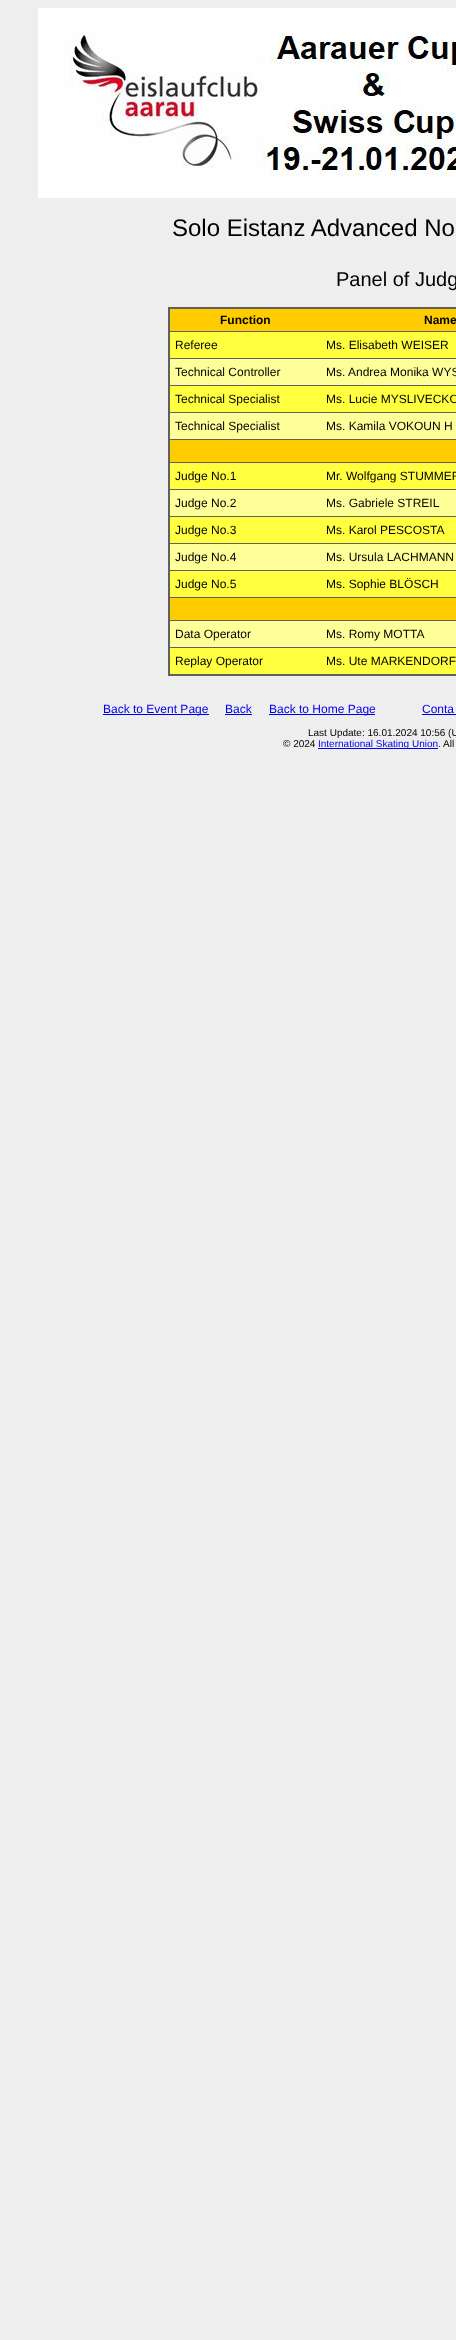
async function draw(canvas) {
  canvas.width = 456
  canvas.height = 2340
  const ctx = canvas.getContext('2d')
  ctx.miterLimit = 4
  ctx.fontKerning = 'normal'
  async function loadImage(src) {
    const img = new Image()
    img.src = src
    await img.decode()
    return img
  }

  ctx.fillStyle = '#eee'
  ctx.fillRect(0, 0, 456, 2340)
  ctx.drawImage(await loadImage('image0.png'), 38, 8, 418, 190)
  ctx.font = '24px Liberation Sans'
  ctx.fillStyle = '#000'
  ctx.fillText('Solo Eistanz Advanced No', 172, 236)
  ctx.font = '20px Liberation Sans'
  ctx.fillText('Panel of Judg', 336, 286)
  ctx.fillStyle = '#606060'
  ctx.fillRect(168, 307, 288, 369)
  ctx.fillStyle = '#fc0'
  ctx.fillRect(170, 309, 286, 22)
  ctx.font = 'bold 12px Liberation Sans'
  ctx.fillStyle = '#000'
  ctx.fillText('Function', 220, 324)
  ctx.fillText('Name', 424, 324)
  ctx.fillStyle = '#ffff40'
  ctx.fillRect(170, 332, 286, 26)
  ctx.font = '12px Liberation Sans'
  ctx.fillStyle = '#000'
  ctx.fillText('Referee', 175, 349)
  ctx.fillText('Ms. Elisabeth WEISER', 326, 349)
  ctx.fillStyle = '#ff9'
  ctx.fillRect(170, 359, 286, 26)
  ctx.fillStyle = '#000'
  ctx.fillText('Technical Controller', 175, 376)
  ctx.fillText('Ms. Andrea Monika WYS', 326, 376)
  ctx.fillStyle = '#ffff40'
  ctx.fillRect(170, 386, 286, 26)
  ctx.fillStyle = '#000'
  ctx.fillText('Technical Specialist', 175, 403)
  ctx.fillText('Ms. Lucie MYSLIVECKO', 326, 403)
  ctx.fillStyle = '#ff9'
  ctx.fillRect(170, 413, 286, 26)
  ctx.fillStyle = '#000'
  ctx.fillText('Technical Specialist', 175, 430)
  ctx.fillText('Ms. Kamila VOKOUN H', 326, 430)
  ctx.fillStyle = '#fc0'
  ctx.fillRect(170, 440, 286, 22)
  ctx.fillStyle = '#ffff40'
  ctx.fillRect(170, 463, 286, 26)
  ctx.fillStyle = '#000'
  ctx.fillText('Judge No.1', 175, 480)
  ctx.fillText('Mr. Wolfgang STUMMER', 326, 480)
  ctx.fillStyle = '#ff9'
  ctx.fillRect(170, 490, 286, 26)
  ctx.fillStyle = '#000'
  ctx.fillText('Judge No.2', 175, 507)
  ctx.fillText('Ms. Gabriele STREIL', 326, 507)
  ctx.fillStyle = '#ffff40'
  ctx.fillRect(170, 517, 286, 26)
  ctx.fillStyle = '#000'
  ctx.fillText('Judge No.3', 175, 534)
  ctx.fillText('Ms. Karol PESCOSTA', 326, 534)
  ctx.fillStyle = '#ff9'
  ctx.fillRect(170, 544, 286, 26)
  ctx.fillStyle = '#000'
  ctx.fillText('Judge No.4', 175, 561)
  ctx.fillText('Ms. Ursula LACHMANN', 326, 561)
  ctx.fillStyle = '#ffff40'
  ctx.fillRect(170, 571, 286, 26)
  ctx.fillStyle = '#000'
  ctx.fillText('Judge No.5', 175, 588)
  ctx.fillText('Ms. Sophie BLÖSCH', 326, 588)
  ctx.fillStyle = '#fc0'
  ctx.fillRect(170, 598, 286, 22)
  ctx.fillStyle = '#ff9'
  ctx.fillRect(170, 621, 286, 26)
  ctx.fillStyle = '#000'
  ctx.fillText('Data Operator', 175, 638)
  ctx.fillText('Ms. Romy MOTTA', 326, 638)
  ctx.fillStyle = '#ffff40'
  ctx.fillRect(170, 648, 286, 26)
  ctx.fillStyle = '#000'
  ctx.fillText('Replay Operator', 175, 665)
  ctx.fillText('Ms. Ute MARKENDORF', 326, 665)
  ctx.fillStyle = '#00e'
  ctx.fillRect(103, 714, 106, 1)
  ctx.fillText('Back to Event Page', 103, 713)
  ctx.fillText('Back', 225, 713)
  ctx.fillRect(225, 714, 27, 1)
  ctx.fillRect(269, 714, 106, 1)
  ctx.fillText('Back to Home Page', 269, 713)
  ctx.fillText('Conta', 422, 713)
  ctx.fillRect(422, 714, 34, 1)
  ctx.font = '10px Liberation Sans'
  ctx.fillStyle = '#000'
  ctx.fillText('Last Update: 16.01.2024 10:56 (U', 308, 736)
  ctx.fillText('© 2024', 283, 747)
  ctx.fillStyle = '#00e'
  ctx.fillRect(318, 748, 120, 1)
  ctx.fillText('International Skating Union', 318, 747)
  ctx.fillStyle = '#000'
  ctx.fillText('. All', 438, 747)
}

draw(document.querySelector('canvas'))
